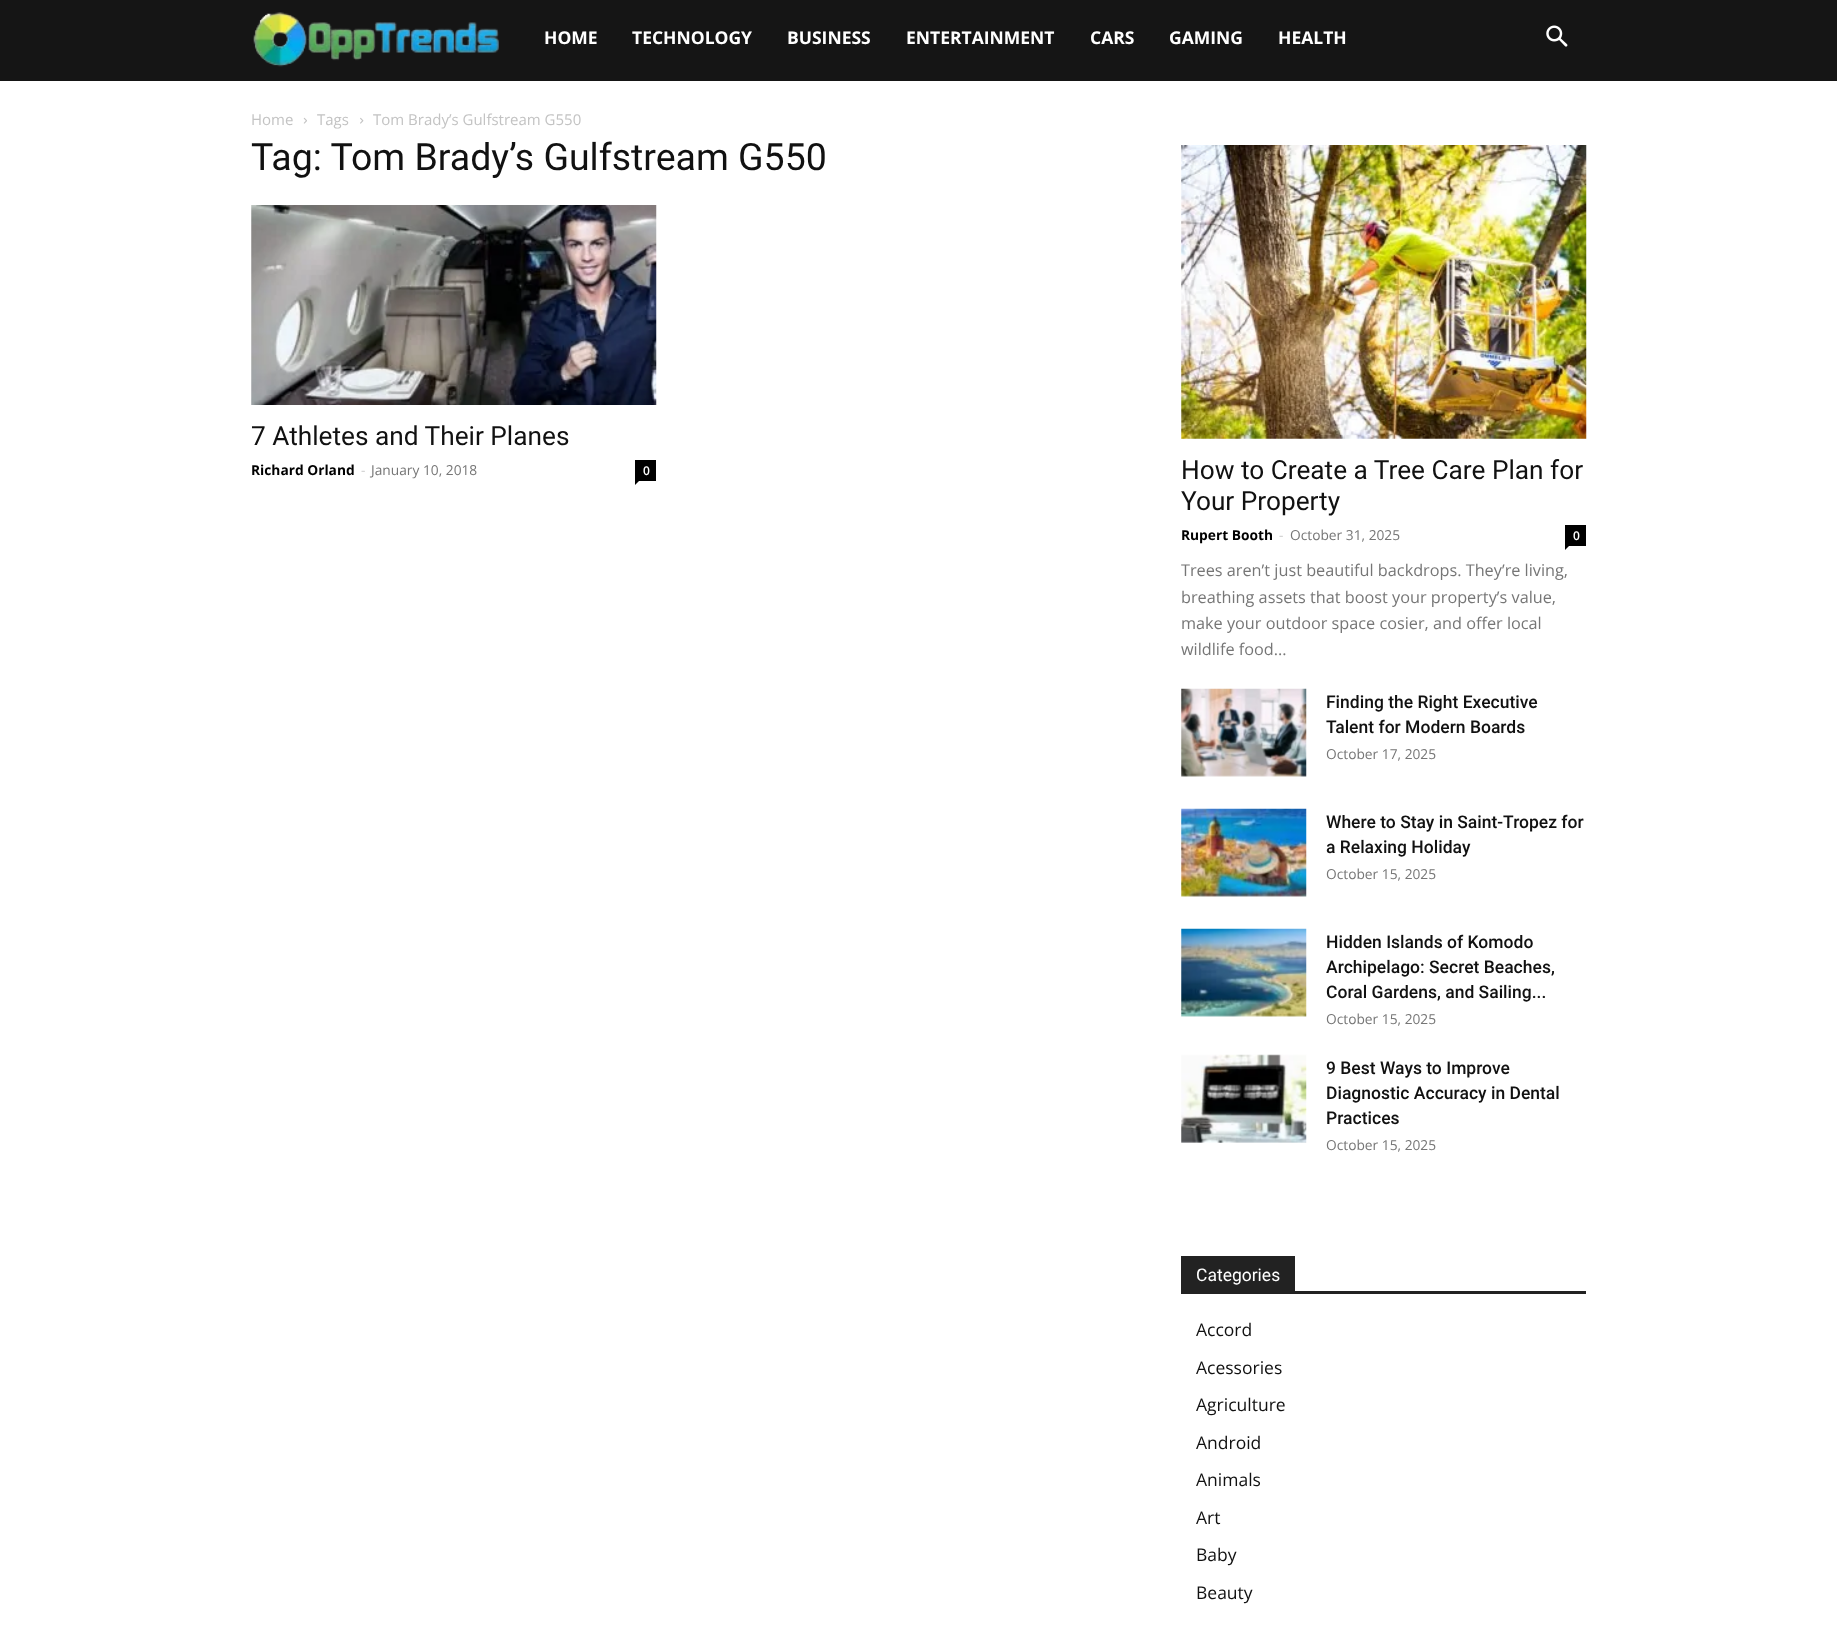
async function draw(canvas) {
  canvas.width = 1837
  canvas.height = 1629
  const ctx = canvas.getContext('2d')
  ctx.miterLimit = 4
  ctx.fontKerning = 'normal'
  async function loadImage(src) {
    const img = new Image()
    img.src = src
    await img.decode()
    return img
  }

  ctx.fillStyle = '#fff'
  ctx.fillRect(0, 0, 1837, 1629)
  ctx.fillStyle = '#151515'
  ctx.fillRect(0, 0, 1837, 81)
  ctx.drawImage(await loadImage('image0.png'), 253, 12, 246, 55)
  ctx.font = 'bold 17.5px Open Sans'
  ctx.fillStyle = '#fff'
  ctx.fillText('HOME', 544, 44)
  ctx.fillText('TECHNOLOGY', 632, 44)
  ctx.fillText('BUSINESS', 787, 44)
  ctx.fillText('ENTERTAINMENT', 906, 44)
  ctx.fillText('CARS', 1090, 44)
  ctx.fillText('GAMING', 1169, 44)
  ctx.fillText('HEALTH', 1278, 44)
  ctx.drawImage(await loadImage('image1.png'), 1546, 25, 22, 22)
  ctx.font = '15px Open Sans'
  ctx.fillStyle = '#c3c3c3'
  ctx.fillText('Home', 251, 125)
  ctx.drawImage(await loadImage('image2.png'), 303, 117, 4, 7)
  ctx.fillText('Tags', 317, 125)
  ctx.drawImage(await loadImage('image3.png'), 360, 117, 4, 7)
  ctx.fillText('Tom Brady’s Gulfstream G550', 373, 125)
  ctx.font = '37.5px Roboto'
  ctx.fillStyle = '#111'
  ctx.fillText('Tag: Tom Brady’s Gulfstream G550', 251, 170)
  ctx.drawImage(await loadImage('image4.png'), 251, 205, 406, 200)
  ctx.font = '26.25px Roboto'
  ctx.fillText('7 Athletes and Their Planes', 251, 445)
  ctx.font = 'bold 13.75px Open Sans'
  ctx.fillStyle = '#000'
  ctx.fillText('Richard Orland', 251, 475)
  ctx.font = '13.75px Open Sans'
  ctx.fillStyle = '#ccc'
  ctx.fillText('-', 361, 475)
  ctx.fillStyle = '#767676'
  ctx.fillText('January 10, 2018', 371, 475)
  ctx.fillStyle = '#000'
  ctx.fillRect(635, 460, 21, 21)
  ctx.font = '600 12px Open Sans'
  ctx.fillStyle = '#fff'
  ctx.fillText('0', 643, 475)
  ctx.fillStyle = '#000'
  ctx.beginPath()
  ctx.moveTo(635, 481)
  ctx.lineTo(639, 481)
  ctx.lineTo(635, 485)
  ctx.closePath()
  ctx.fill()
  ctx.drawImage(await loadImage('image5.png'), 1181, 145, 406, 294)
  ctx.font = '26.25px Roboto'
  ctx.fillStyle = '#111'
  ctx.fillText('How to Create a Tree Care Plan for', 1181, 479)
  ctx.fillText('Your Property', 1181, 510)
  ctx.font = 'bold 13.75px Open Sans'
  ctx.fillStyle = '#000'
  ctx.fillText('Rupert Booth', 1181, 540)
  ctx.font = '13.75px Open Sans'
  ctx.fillStyle = '#ccc'
  ctx.fillText('-', 1279, 540)
  ctx.fillStyle = '#767676'
  ctx.fillText('October 31, 2025', 1290, 540)
  ctx.fillStyle = '#000'
  ctx.fillRect(1565, 525, 21, 21)
  ctx.font = '600 12px Open Sans'
  ctx.fillStyle = '#fff'
  ctx.fillText('0', 1573, 540)
  ctx.fillStyle = '#000'
  ctx.beginPath()
  ctx.moveTo(1565, 546)
  ctx.lineTo(1569, 546)
  ctx.lineTo(1565, 550)
  ctx.closePath()
  ctx.fill()
  ctx.font = '16.25px Open Sans'
  ctx.fillStyle = '#767676'
  ctx.fillText('Trees aren’t just beautiful backdrops. They’re living,', 1181, 576)
  ctx.fillText('breathing assets that boost your property’s value,', 1181, 603)
  ctx.fillText('make your outdoor space cosier, and offer local', 1181, 629)
  ctx.fillText('wildlife food...', 1181, 655)
  ctx.drawImage(await loadImage('image6.png'), 1181, 688, 126, 89)
  ctx.font = '500 17.5px Roboto'
  ctx.fillStyle = '#111'
  ctx.fillText('Finding the Right Executive', 1326, 708)
  ctx.fillText('Talent for Modern Boards', 1326, 733)
  ctx.font = '13.75px Open Sans'
  ctx.fillStyle = '#767676'
  ctx.fillText('October 17, 2025', 1326, 759)
  ctx.drawImage(await loadImage('image7.png'), 1181, 808, 126, 89)
  ctx.font = '500 17.5px Roboto'
  ctx.fillStyle = '#111'
  ctx.fillText('Where to Stay in Saint-Tropez for', 1326, 828)
  ctx.fillText('a Relaxing Holiday', 1326, 853)
  ctx.font = '13.75px Open Sans'
  ctx.fillStyle = '#767676'
  ctx.fillText('October 15, 2025', 1326, 879)
  ctx.drawImage(await loadImage('image8.png'), 1181, 928, 126, 89)
  ctx.font = '500 17.5px Roboto'
  ctx.fillStyle = '#111'
  ctx.fillText('Hidden Islands of Komodo', 1326, 948)
  ctx.fillText('Archipelago: Secret Beaches,', 1326, 973)
  ctx.fillText('Coral Gardens, and Sailing...', 1326, 998)
  ctx.font = '13.75px Open Sans'
  ctx.fillStyle = '#767676'
  ctx.fillText('October 15, 2025', 1326, 1024)
  ctx.drawImage(await loadImage('image9.png'), 1181, 1054, 126, 89)
  ctx.font = '500 17.5px Roboto'
  ctx.fillStyle = '#111'
  ctx.fillText('9 Best Ways to Improve', 1326, 1074)
  ctx.fillText('Diagnostic Accuracy in Dental', 1326, 1099)
  ctx.fillText('Practices', 1326, 1124)
  ctx.font = '13.75px Open Sans'
  ctx.fillStyle = '#767676'
  ctx.fillText('October 15, 2025', 1326, 1150)
  ctx.fillStyle = '#222'
  ctx.fillRect(1181, 1291, 405, 3)
  ctx.fillRect(1181, 1256, 114, 35)
  ctx.font = '17.5px Roboto'
  ctx.fillStyle = '#fff'
  ctx.fillText('Categories', 1196, 1281)
  ctx.font = '17.5px Open Sans'
  ctx.fillStyle = '#111'
  ctx.fillText('Accord', 1196, 1336)
  ctx.fillText('Acessories', 1196, 1374)
  ctx.fillText('Agriculture', 1196, 1411)
  ctx.fillText('Android', 1196, 1449)
  ctx.fillText('Animals', 1196, 1486)
  ctx.fillText('Art', 1196, 1524)
  ctx.fillText('Baby', 1196, 1561)
  ctx.fillText('Beauty', 1196, 1599)
}

draw(document.querySelector('canvas'))
